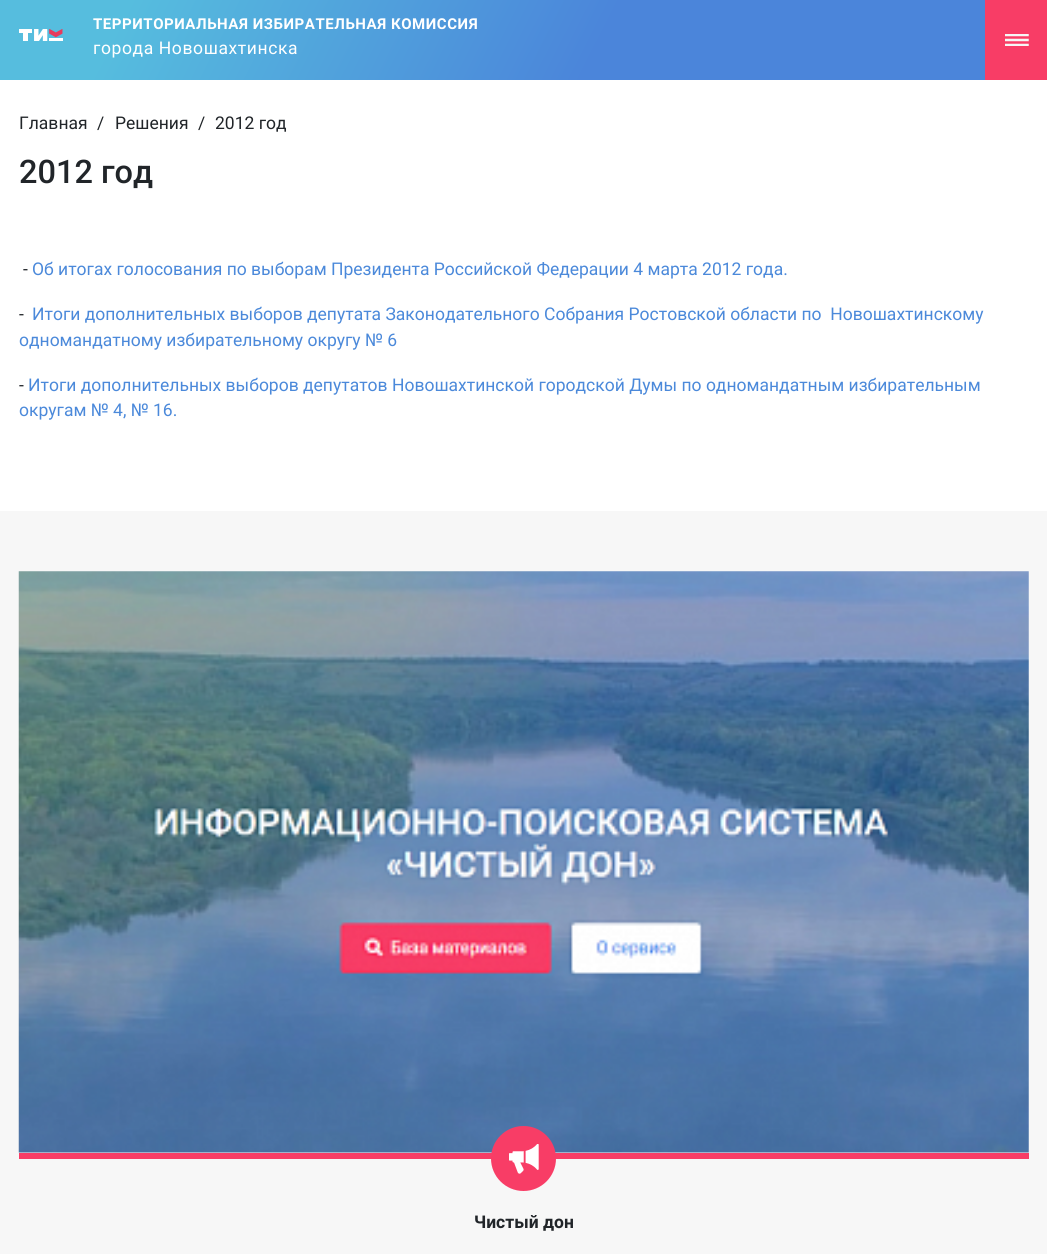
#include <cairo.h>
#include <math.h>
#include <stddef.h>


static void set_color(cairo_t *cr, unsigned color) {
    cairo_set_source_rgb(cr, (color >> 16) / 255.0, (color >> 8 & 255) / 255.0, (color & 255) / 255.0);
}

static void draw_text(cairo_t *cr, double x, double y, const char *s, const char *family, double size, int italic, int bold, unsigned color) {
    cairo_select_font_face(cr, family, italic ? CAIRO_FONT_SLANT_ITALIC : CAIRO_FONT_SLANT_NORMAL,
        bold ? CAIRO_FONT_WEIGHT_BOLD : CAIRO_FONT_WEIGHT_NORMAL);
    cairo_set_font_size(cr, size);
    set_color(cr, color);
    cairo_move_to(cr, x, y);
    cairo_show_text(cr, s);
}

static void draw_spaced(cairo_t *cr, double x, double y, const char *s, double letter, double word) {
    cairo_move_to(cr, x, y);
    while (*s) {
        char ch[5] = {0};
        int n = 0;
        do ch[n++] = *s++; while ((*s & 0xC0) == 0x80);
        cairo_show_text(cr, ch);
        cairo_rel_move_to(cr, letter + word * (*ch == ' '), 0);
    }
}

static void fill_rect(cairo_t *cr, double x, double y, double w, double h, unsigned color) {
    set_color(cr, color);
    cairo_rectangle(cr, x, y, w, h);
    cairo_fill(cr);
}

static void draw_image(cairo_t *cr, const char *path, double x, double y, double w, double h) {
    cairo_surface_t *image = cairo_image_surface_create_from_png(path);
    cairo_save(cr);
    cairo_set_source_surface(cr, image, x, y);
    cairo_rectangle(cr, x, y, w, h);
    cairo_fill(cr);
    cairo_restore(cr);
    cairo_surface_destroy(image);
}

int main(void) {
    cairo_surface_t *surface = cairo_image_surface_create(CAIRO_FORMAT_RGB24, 1047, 1254);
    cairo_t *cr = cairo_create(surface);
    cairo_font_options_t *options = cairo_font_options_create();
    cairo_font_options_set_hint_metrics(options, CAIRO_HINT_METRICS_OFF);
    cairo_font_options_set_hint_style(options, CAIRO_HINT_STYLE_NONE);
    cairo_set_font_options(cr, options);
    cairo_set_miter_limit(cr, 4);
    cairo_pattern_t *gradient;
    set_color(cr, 0xFFFFFF);
    cairo_paint(cr);
    gradient = cairo_pattern_create_linear(92, -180, 956, 260);
    cairo_pattern_add_color_stop_rgba(gradient, 0.12, 0.337, 0.741, 0.871, 1);
    cairo_pattern_add_color_stop_rgba(gradient, 0.57, 0.294, 0.522, 0.855, 1);
    cairo_set_source(cr, gradient);
    cairo_pattern_destroy(gradient);
    cairo_rectangle(cr, 0, 0, 985, 80);
    cairo_fill(cr);
    draw_image(cr, "assets/img1.png", 19, 29, 44, 12);
    cairo_select_font_face(cr, "Roboto", CAIRO_FONT_SLANT_NORMAL, CAIRO_FONT_WEIGHT_BOLD);
    cairo_set_font_size(cr, 15);
    set_color(cr, 0xFFFFFF);
    draw_spaced(cr, 93, 29, "ТЕРРИТОРИАЛЬНАЯ ИЗБИРАТЕЛЬНАЯ КОМИССИЯ", 0.55, 0);
    cairo_select_font_face(cr, "Roboto", CAIRO_FONT_SLANT_NORMAL, CAIRO_FONT_WEIGHT_NORMAL);
    cairo_set_font_size(cr, 17.5);
    draw_spaced(cr, 93, 54, "города Новошахтинска", 0.6, 0);
    fill_rect(cr, 985, 0, 62, 80, 0xF83D66);
    draw_image(cr, "assets/img2.png", 1005, 34, 24, 12);
    draw_text(cr, 19, 129, "Главная", "Roboto", 17.5, 0, 0, 0x212529);
    draw_text(cr, 97, 129, "/", "Roboto", 17.5, 0, 0, 0x212529);
    draw_text(cr, 115, 129, "Решения", "Roboto", 17.5, 0, 0, 0x212529);
    draw_text(cr, 198, 129, "/", "Roboto", 17.5, 0, 0, 0x212529);
    draw_text(cr, 215, 129, "2012 год", "Roboto", 17.5, 0, 0, 0x212529);
    draw_text(cr, 19, 183, "2012 год", "Roboto Medium", 32.5, 0, 0, 0x212529);
    draw_text(cr, 23, 275, "-", "Roboto", 17.5, 0, 0, 0x212529);
    draw_text(cr, 32, 275, "Об итогах голосования по выборам Президента Российской Федерации 4 марта 2012 года.", "Roboto", 17.5, 0, 0, 0x4B89DA);
    draw_text(cr, 19, 320, "-", "Roboto", 17.5, 0, 0, 0x212529);
    draw_text(cr, 32, 320, "Итоги дополнительных выборов депутата Законодательного Собрания Ростовской области по  Новошахтинскому", "Roboto", 17.5, 0, 0, 0x4B89DA);
    draw_text(cr, 19, 346, "одномандатному избирательному округу № 6", "Roboto", 17.5, 0, 0, 0x4B89DA);
    draw_text(cr, 19, 391, "-", "Roboto", 17.5, 0, 0, 0x212529);
    draw_text(cr, 28, 391, "Итоги дополнительных выборов депутатов Новошахтинской городской Думы по одномандатным избирательным", "Roboto", 17.5, 0, 0, 0x4B89DA);
    draw_text(cr, 19, 416, "округам № 4, № 16.", "Roboto", 17.5, 0, 0, 0x4B89DA);
    fill_rect(cr, 0, 511, 1047, 743, 0xF7F7F7);
    fill_rect(cr, 19, 1153, 1010, 6, 0xF83D66);
    draw_image(cr, "assets/img3.png", 18, 571, 1011, 582);
    cairo_arc(cr, 523.5, 1158.5, 32.5, 0, 2 * M_PI);
    cairo_fill(cr);
    draw_image(cr, "assets/img4.png", 509, 1144, 30, 30);
    draw_text(cr, 474, 1228, "Чистый дон", "Roboto", 17.5, 0, 1, 0x212529);
    cairo_surface_write_to_png(surface, "output.png");
    cairo_font_options_destroy(options);
    cairo_destroy(cr);
    cairo_surface_destroy(surface);
    return 0;
}
